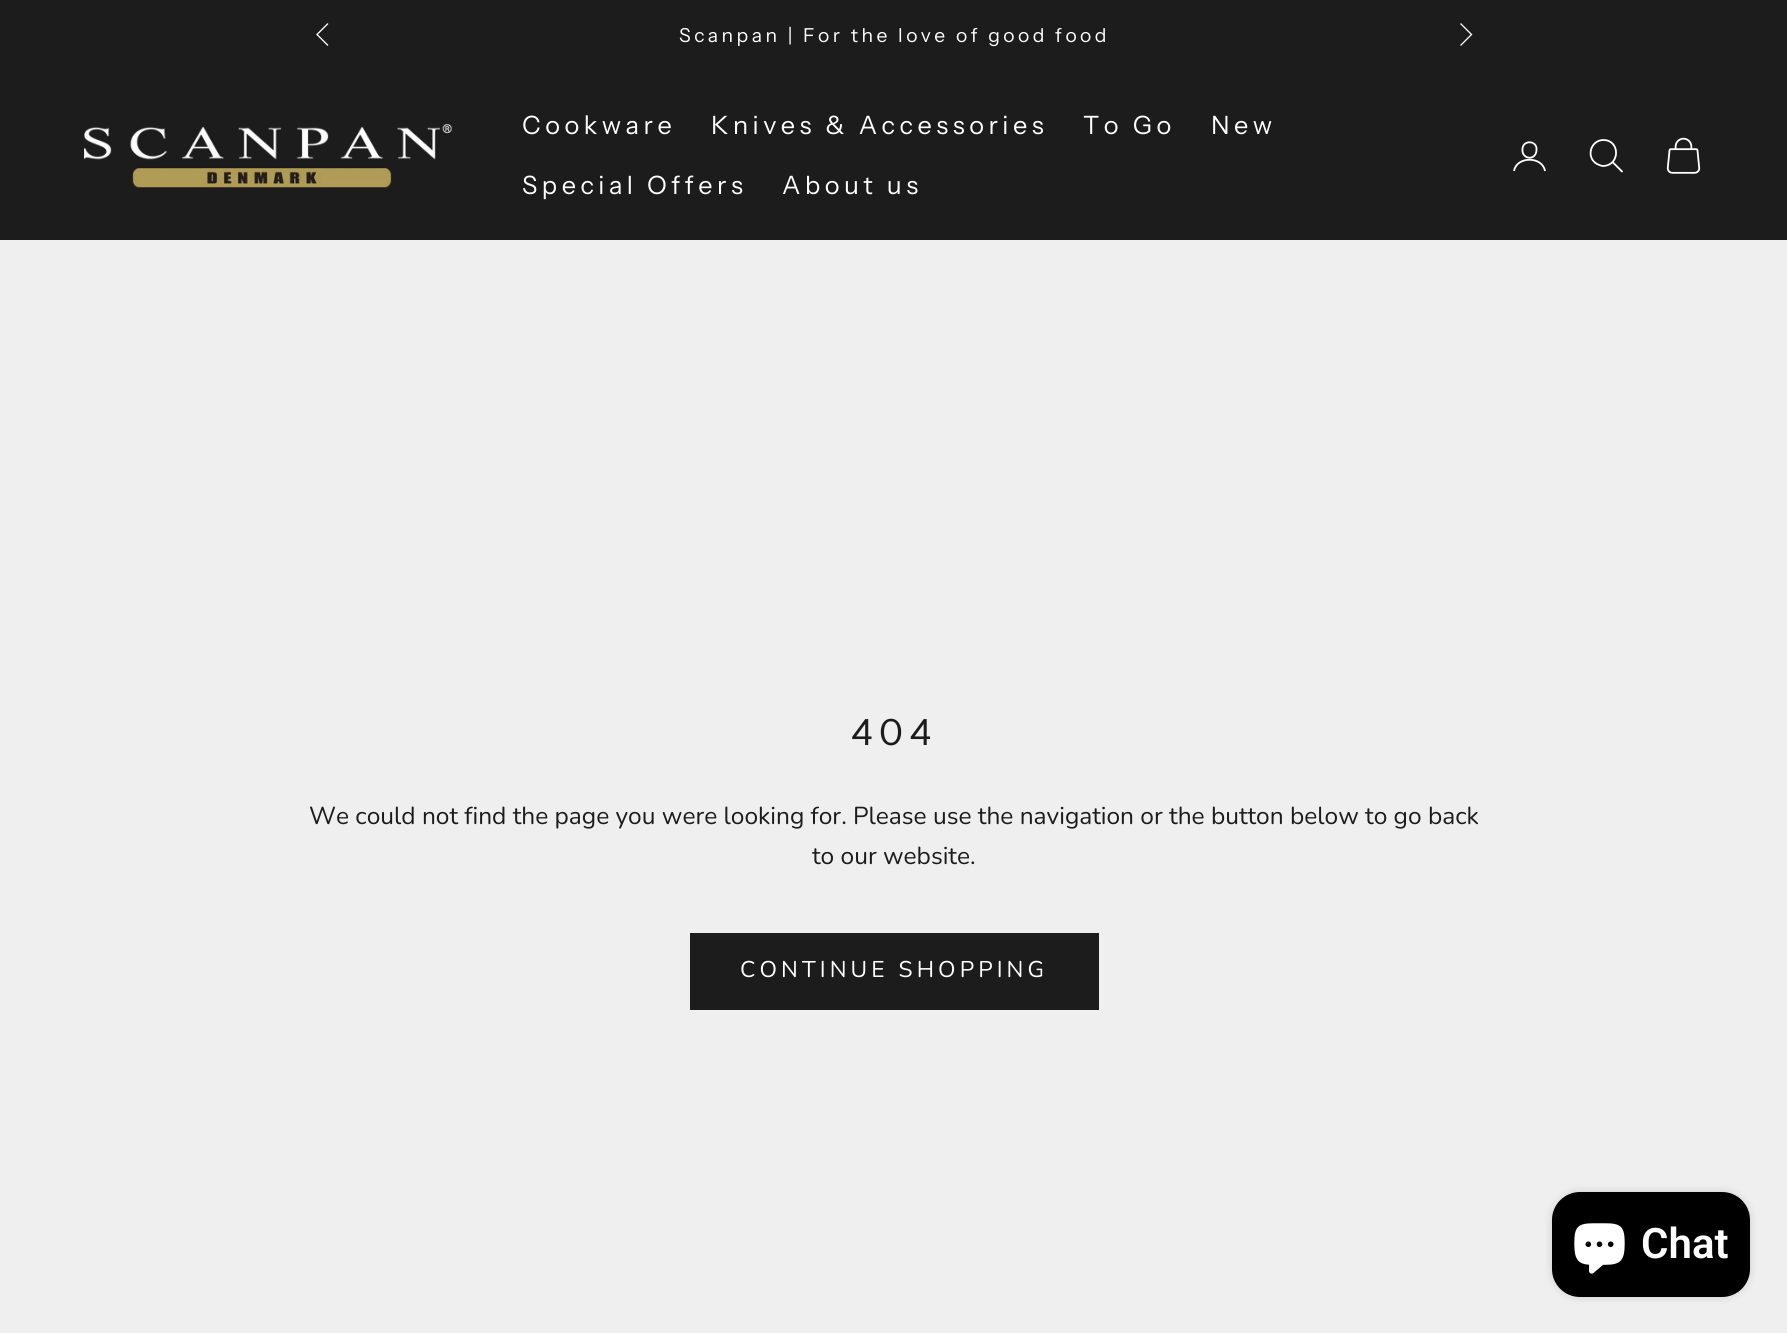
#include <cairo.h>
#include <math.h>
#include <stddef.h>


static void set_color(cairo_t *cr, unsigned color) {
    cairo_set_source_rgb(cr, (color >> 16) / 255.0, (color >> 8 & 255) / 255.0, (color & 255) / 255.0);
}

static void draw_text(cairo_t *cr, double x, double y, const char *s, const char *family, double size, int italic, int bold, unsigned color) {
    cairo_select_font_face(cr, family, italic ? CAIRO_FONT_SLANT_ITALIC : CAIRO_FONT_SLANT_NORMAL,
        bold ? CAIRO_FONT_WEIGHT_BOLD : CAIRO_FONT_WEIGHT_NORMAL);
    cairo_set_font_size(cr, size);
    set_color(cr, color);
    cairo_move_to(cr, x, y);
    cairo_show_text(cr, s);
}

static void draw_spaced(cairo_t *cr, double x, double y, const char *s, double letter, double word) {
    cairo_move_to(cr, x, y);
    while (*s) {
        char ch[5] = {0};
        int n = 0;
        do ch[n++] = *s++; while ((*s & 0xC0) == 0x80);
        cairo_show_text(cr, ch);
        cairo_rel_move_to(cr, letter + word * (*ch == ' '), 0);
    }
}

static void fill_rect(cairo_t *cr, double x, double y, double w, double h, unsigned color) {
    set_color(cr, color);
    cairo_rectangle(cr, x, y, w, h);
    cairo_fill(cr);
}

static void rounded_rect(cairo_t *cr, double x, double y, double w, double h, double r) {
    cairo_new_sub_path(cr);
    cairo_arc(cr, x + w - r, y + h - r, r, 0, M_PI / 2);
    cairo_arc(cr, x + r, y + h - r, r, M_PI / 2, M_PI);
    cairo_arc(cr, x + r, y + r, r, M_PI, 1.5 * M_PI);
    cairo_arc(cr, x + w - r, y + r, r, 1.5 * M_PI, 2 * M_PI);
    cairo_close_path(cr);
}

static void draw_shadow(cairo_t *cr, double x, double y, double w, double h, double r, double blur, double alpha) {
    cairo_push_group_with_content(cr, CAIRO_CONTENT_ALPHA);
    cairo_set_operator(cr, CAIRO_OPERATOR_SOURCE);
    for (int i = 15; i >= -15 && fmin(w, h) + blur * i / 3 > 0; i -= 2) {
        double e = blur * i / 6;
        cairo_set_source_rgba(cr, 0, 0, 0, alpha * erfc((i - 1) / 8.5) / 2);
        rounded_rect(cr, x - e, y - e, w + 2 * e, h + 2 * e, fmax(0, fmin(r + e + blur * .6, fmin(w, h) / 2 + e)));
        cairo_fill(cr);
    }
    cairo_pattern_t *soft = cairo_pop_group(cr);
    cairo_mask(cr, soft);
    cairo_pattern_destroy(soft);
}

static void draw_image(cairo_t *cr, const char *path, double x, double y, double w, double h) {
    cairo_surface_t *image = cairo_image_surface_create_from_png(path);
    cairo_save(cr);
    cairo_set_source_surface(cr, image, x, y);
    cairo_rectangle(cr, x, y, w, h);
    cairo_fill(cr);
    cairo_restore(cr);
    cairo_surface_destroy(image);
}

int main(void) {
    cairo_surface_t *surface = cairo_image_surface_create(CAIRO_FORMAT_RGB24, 1787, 1333);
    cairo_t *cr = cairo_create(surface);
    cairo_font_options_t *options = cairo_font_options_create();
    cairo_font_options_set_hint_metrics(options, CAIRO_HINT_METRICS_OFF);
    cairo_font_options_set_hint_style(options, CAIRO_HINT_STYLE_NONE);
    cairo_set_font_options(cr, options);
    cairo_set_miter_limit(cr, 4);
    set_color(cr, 0xEFEFEF);
    cairo_paint(cr);
    fill_rect(cr, 0, 0, 1787, 240, 0x1C1C1C);
    cairo_new_path(cr);
    cairo_move_to(cr, 327.5, 24);
    cairo_line_to(cr, 317, 34.5);
    cairo_line_to(cr, 327.5, 45);
    set_color(cr, 0xFFFFFF);
    cairo_set_line_width(cr, 1.3);
    cairo_set_line_cap(cr, CAIRO_LINE_CAP_SQUARE);
    cairo_stroke(cr);
    cairo_select_font_face(cr, "Instrument Sans", CAIRO_FONT_SLANT_NORMAL, CAIRO_FONT_WEIGHT_NORMAL);
    cairo_set_font_size(cr, 19.25);
    draw_spaced(cr, 679, 42, "Scanpan | For the love of good food", 3.45, 0);
    cairo_new_path(cr);
    cairo_move_to(cr, 1461, 45);
    cairo_line_to(cr, 1471.5, 34.5);
    cairo_line_to(cr, 1461, 24);
    cairo_stroke(cr);
    draw_image(cr, "assets/img1.png", 84, 124, 368, 64);
    cairo_set_font_size(cr, 25.25);
    draw_spaced(cr, 522, 134, "Cookware", 4.5, 0);
    draw_spaced(cr, 711, 134, "Knives & Accessories", 4.5, 0);
    draw_spaced(cr, 1083, 134, "To Go", 4.5, 0);
    draw_spaced(cr, 1211, 134, "New", 4.5, 0);
    draw_spaced(cr, 522, 194, "Special Offers", 4.5, 0);
    draw_spaced(cr, 782, 194, "About us", 4.5, 0);
    cairo_new_path(cr);
    cairo_move_to(cr, 1536.5, 150);
    cairo_curve_to(cr, 1536, 161.5, 1521, 159.5, 1522.5, 148.5);
    cairo_curve_to(cr, 1523.5, 139.5, 1537.5, 140.5, 1536.5, 150);
    cairo_close_path(cr);
    cairo_set_line_width(cr, 1.8);
    cairo_set_line_cap(cr, CAIRO_LINE_CAP_ROUND);
    cairo_set_line_join(cr, CAIRO_LINE_JOIN_ROUND);
    cairo_stroke(cr);
    cairo_new_path(cr);
    cairo_move_to(cr, 1514, 171);
    cairo_curve_to(cr, 1516.5, 156, 1542.5, 156, 1545, 171);
    cairo_set_line_cap(cr, CAIRO_LINE_CAP_BUTT);
    cairo_set_line_join(cr, CAIRO_LINE_JOIN_MITER);
    cairo_stroke(cr);
    cairo_new_path(cr);
    cairo_move_to(cr, 1603.5, 140);
    cairo_curve_to(cr, 1590.5, 140, 1585.5, 157.5, 1597, 164);
    cairo_curve_to(cr, 1599, 165, 1601.5, 166, 1603.5, 166);
    cairo_curve_to(cr, 1620.5, 165, 1620, 140, 1603.5, 140);
    cairo_close_path(cr);
    cairo_stroke(cr);
    cairo_new_path(cr);
    cairo_move_to(cr, 1613, 162.5);
    cairo_line_to(cr, 1622, 171.5);
    cairo_set_line_cap(cr, CAIRO_LINE_CAP_ROUND);
    cairo_stroke(cr);
    draw_image(cr, "assets/img2.png", 1666, 137, 35, 37);
    cairo_set_font_size(cr, 36);
    set_color(cr, 0x1C1C1C);
    draw_spaced(cr, 851, 745, "404", 6.5, 0);
    draw_text(cr, 309, 824, "We could not find the page you were looking for. Please use the navigation or the button below to go back", "Nunito", 24.5, 0, 0, 0x1C1C1C);
    draw_text(cr, 812, 864, "to our website.", "Nunito", 24.5, 0, 0, 0x1C1C1C);
    cairo_rectangle(cr, 691, 934, 407, 75);
    cairo_fill_preserve(cr);
    cairo_set_line_width(cr, 2);
    cairo_set_line_cap(cr, CAIRO_LINE_CAP_BUTT);
    cairo_stroke(cr);
    cairo_set_font_size(cr, 22.75);
    set_color(cr, 0xFFFFFF);
    draw_spaced(cr, 740, 977, "CONTINUE SHOPPING", 4.1, 0);
    set_color(cr, 0x000000);
    draw_shadow(cr, 1552, 1192, 198, 105, 28, 4.5, 0.15);
    set_color(cr, 0x000000);
    rounded_rect(cr, 1552, 1192, 198, 105, 28);
    cairo_fill(cr);
    draw_image(cr, "assets/img3.png", 1574, 1223, 51, 51);
    draw_text(cr, 1641, 1258, "Chat", "Roboto SemiBold", 42, 0, 0, 0xFFFFFF);
    cairo_surface_write_to_png(surface, "output.png");
    cairo_font_options_destroy(options);
    cairo_destroy(cr);
    cairo_surface_destroy(surface);
    return 0;
}
